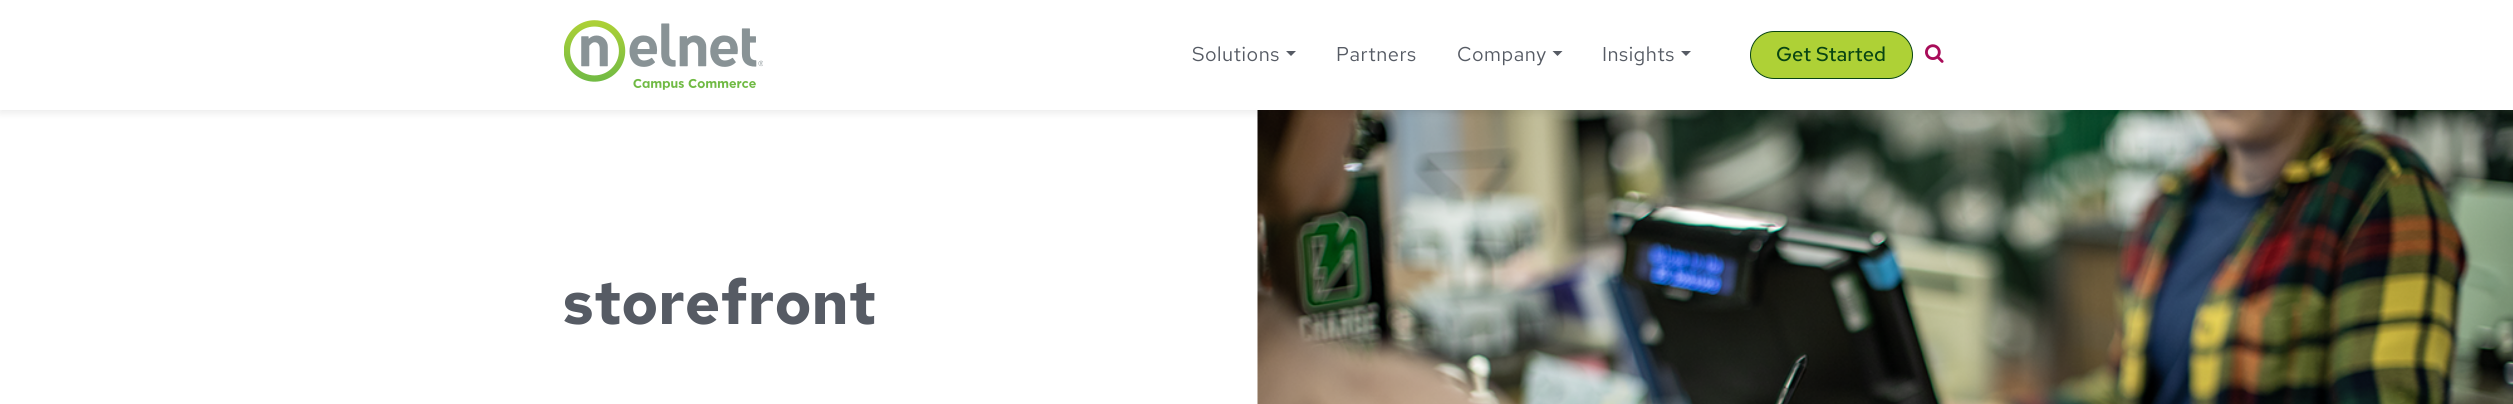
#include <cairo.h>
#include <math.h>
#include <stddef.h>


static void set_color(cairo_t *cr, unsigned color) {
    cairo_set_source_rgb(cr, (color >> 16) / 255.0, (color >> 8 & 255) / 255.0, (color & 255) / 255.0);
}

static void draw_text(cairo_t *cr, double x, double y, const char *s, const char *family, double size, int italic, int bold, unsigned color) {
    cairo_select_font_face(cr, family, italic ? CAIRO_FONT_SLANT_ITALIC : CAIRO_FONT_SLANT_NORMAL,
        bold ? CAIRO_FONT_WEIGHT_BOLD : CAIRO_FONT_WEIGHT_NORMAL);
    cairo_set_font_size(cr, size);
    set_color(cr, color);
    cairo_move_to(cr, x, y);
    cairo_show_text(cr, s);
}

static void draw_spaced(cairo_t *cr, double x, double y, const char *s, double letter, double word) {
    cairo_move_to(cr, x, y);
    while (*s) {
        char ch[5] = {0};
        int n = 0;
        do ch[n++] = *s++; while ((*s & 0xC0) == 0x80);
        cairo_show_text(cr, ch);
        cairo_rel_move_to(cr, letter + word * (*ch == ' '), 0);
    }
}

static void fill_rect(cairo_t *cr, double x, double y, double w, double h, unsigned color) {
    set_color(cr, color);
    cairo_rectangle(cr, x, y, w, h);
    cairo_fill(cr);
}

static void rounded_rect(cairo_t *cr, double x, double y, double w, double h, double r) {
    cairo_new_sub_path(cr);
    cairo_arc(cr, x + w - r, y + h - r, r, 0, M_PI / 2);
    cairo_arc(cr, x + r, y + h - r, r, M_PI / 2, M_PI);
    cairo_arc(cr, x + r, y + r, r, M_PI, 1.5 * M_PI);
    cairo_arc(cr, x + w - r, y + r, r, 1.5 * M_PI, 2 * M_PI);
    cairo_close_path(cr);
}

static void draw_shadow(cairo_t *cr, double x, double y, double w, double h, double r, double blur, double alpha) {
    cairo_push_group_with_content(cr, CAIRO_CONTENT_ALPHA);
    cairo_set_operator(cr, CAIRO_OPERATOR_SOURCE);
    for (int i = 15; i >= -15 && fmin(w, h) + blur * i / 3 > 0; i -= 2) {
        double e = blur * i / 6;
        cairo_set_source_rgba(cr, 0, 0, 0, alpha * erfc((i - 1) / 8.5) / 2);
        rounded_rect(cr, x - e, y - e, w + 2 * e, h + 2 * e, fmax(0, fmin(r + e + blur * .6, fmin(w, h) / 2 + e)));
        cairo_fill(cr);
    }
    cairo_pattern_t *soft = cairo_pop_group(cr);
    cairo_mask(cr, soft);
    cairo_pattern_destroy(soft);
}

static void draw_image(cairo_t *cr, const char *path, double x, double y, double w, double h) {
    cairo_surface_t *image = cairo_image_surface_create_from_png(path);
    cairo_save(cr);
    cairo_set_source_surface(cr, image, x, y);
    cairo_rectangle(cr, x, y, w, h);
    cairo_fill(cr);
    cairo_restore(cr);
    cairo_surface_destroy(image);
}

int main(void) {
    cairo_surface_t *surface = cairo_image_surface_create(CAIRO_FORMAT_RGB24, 2513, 404);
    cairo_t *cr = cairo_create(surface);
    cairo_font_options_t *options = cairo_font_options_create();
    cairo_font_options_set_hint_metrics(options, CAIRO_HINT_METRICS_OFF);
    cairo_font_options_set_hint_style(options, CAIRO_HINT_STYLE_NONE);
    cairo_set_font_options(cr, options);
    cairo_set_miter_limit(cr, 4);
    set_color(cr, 0xFFFFFF);
    cairo_paint(cr);
    draw_image(cr, "assets/img3.png", 1257, 110, 1256, 294);
    set_color(cr, 0x000000);
    draw_shadow(cr, 0, 3, 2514, 110, 0, 4, 0.08);
    fill_rect(cr, 0, 0, 2513, 110, 0xFFFFFF);
    draw_image(cr, "assets/img1.png", 564, 20, 199, 70);
    cairo_select_font_face(cr, "Red Hat Text", CAIRO_FONT_SLANT_NORMAL, CAIRO_FONT_WEIGHT_NORMAL);
    cairo_set_font_size(cr, 20);
    set_color(cr, 0x565B64);
    draw_spaced(cr, 1192, 61, "Solutions", 0.5, 0);
    cairo_new_path(cr);
    cairo_move_to(cr, 1286, 51);
    cairo_line_to(cr, 1296, 51);
    cairo_line_to(cr, 1291, 56);
    cairo_close_path(cr);
    cairo_fill(cr);
    draw_spaced(cr, 1336, 61, "Partners", 0.5, 0);
    draw_spaced(cr, 1457, 61, "Company", 0.5, 0);
    cairo_new_path(cr);
    cairo_move_to(cr, 1552.5, 51);
    cairo_line_to(cr, 1562.5, 51);
    cairo_line_to(cr, 1557.5, 56);
    cairo_close_path(cr);
    cairo_fill(cr);
    draw_spaced(cr, 1602, 61, "Insights", 0.5, 0);
    cairo_new_path(cr);
    cairo_move_to(cr, 1681, 51);
    cairo_line_to(cr, 1691, 51);
    cairo_line_to(cr, 1686, 56);
    cairo_close_path(cr);
    cairo_fill(cr);
    set_color(cr, 0xAED136);
    rounded_rect(cr, 1750.5, 31.5, 162, 47, 23.5);
    cairo_fill_preserve(cr);
    set_color(cr, 0x084412);
    cairo_set_line_width(cr, 1);
    cairo_stroke(cr);
    draw_text(cr, 1776, 61, "Get Started", "Red Hat Text Medium", 20, 0, 0, 0x084412);
    draw_image(cr, "assets/img2.png", 1925, 44, 19, 19);
    draw_text(cr, 563, 324, "storefront", "Red Hat Text", 60, 0, 1, 0x565B64);
    cairo_surface_write_to_png(surface, "output.png");
    cairo_font_options_destroy(options);
    cairo_destroy(cr);
    cairo_surface_destroy(surface);
    return 0;
}
